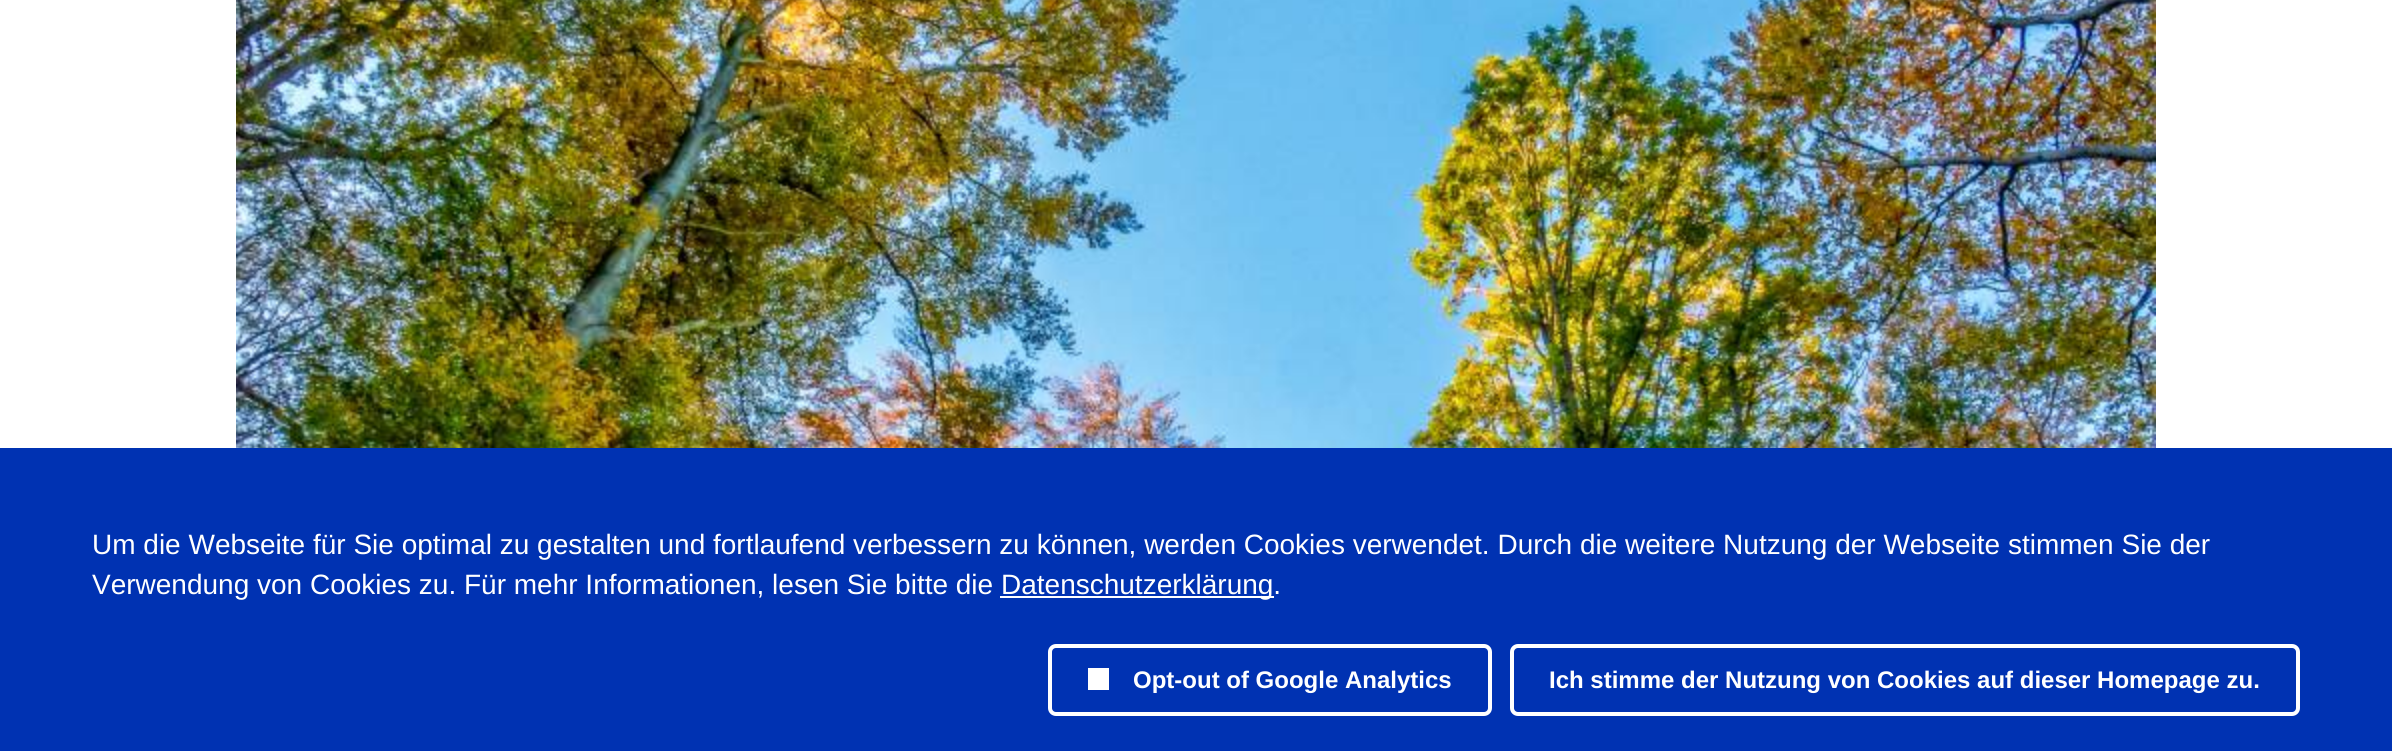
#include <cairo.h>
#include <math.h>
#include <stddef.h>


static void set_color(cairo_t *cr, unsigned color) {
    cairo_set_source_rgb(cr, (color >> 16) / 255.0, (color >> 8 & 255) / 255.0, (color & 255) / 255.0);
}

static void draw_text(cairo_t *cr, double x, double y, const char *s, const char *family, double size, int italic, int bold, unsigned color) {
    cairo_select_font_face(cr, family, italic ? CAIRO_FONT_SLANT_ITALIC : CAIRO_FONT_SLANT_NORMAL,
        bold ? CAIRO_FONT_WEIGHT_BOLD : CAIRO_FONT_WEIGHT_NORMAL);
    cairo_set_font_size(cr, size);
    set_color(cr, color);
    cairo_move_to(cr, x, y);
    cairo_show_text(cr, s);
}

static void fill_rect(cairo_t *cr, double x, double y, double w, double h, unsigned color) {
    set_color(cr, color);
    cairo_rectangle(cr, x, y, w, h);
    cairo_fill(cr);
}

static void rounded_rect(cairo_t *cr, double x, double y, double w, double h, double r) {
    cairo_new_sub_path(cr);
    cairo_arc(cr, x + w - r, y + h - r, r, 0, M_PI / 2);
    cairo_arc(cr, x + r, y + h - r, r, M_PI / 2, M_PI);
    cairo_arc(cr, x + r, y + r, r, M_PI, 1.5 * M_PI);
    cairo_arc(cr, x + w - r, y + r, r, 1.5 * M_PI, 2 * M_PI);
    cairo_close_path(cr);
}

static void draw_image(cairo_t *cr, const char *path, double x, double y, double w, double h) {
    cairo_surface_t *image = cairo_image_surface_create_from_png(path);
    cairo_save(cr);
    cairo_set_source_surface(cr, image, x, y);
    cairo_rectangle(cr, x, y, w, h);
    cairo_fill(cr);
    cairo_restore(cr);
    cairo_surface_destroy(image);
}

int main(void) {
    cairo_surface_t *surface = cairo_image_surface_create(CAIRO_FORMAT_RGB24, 2392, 751);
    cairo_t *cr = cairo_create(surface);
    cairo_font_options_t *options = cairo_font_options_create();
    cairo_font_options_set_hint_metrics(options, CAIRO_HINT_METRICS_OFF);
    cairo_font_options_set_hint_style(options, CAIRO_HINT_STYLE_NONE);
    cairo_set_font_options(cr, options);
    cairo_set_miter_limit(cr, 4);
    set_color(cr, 0xFFFFFF);
    cairo_paint(cr);
    draw_image(cr, "assets/img1.png", 236, 0, 1920, 448);
    fill_rect(cr, 0, 448, 2392, 303, 0x0032B2);
    draw_text(cr, 92, 554, "Um die Webseite für Sie optimal zu gestalten und fortlaufend verbessern zu können, werden Cookies verwendet. Durch die weitere Nutzung der Webseite stimmen Sie der", "Liberation Sans", 28, 0, 0, 0xFFFFFF);
    draw_text(cr, 92, 594, "Verwendung von Cookies zu. Für mehr Informationen, lesen Sie bitte die", "Liberation Sans", 28, 0, 0, 0xFFFFFF);
    fill_rect(cr, 1000, 596, 274, 2, 0xFFFFFF);
    draw_text(cr, 1001, 594, "Datenschutzerklärung.", "Liberation Sans", 28, 0, 0, 0xFFFFFF);
    rounded_rect(cr, 1050, 646, 440, 68, 6);
    cairo_set_line_width(cr, 4);
    cairo_stroke(cr);
    fill_rect(cr, 1088, 668, 21, 22, 0xFFFFFF);
    draw_text(cr, 1133, 688, "Opt-out of Google Analytics", "Liberation Sans", 24, 0, 1, 0xFFFFFF);
    rounded_rect(cr, 1512, 646, 786, 68, 6);
    cairo_stroke(cr);
    draw_text(cr, 1549, 688, "Ich stimme der Nutzung von Cookies auf dieser Homepage zu.", "Liberation Sans", 24, 0, 1, 0xFFFFFF);
    cairo_surface_write_to_png(surface, "output.png");
    cairo_font_options_destroy(options);
    cairo_destroy(cr);
    cairo_surface_destroy(surface);
    return 0;
}
